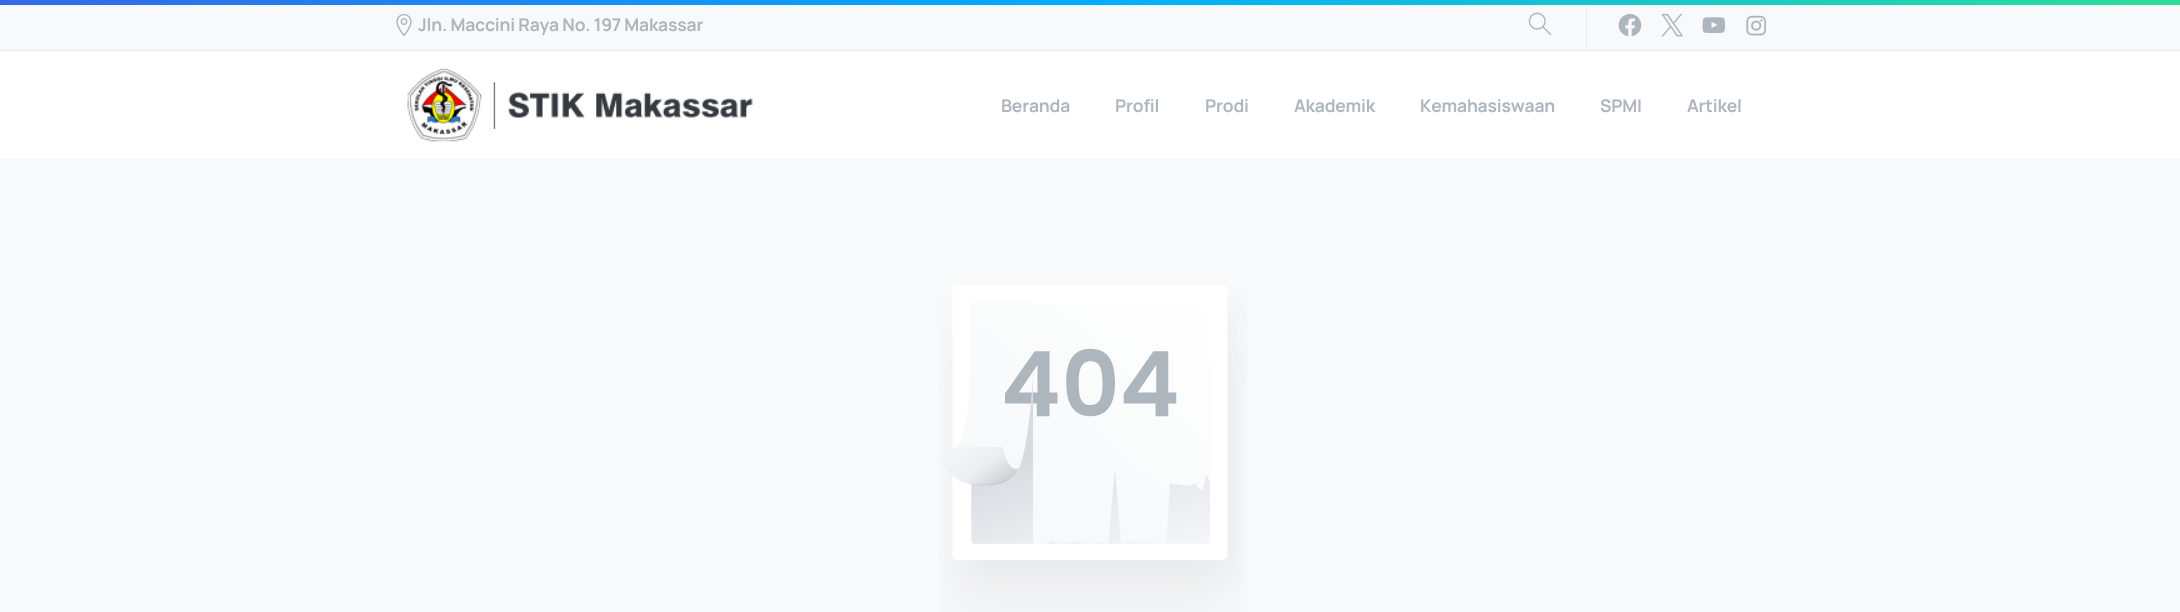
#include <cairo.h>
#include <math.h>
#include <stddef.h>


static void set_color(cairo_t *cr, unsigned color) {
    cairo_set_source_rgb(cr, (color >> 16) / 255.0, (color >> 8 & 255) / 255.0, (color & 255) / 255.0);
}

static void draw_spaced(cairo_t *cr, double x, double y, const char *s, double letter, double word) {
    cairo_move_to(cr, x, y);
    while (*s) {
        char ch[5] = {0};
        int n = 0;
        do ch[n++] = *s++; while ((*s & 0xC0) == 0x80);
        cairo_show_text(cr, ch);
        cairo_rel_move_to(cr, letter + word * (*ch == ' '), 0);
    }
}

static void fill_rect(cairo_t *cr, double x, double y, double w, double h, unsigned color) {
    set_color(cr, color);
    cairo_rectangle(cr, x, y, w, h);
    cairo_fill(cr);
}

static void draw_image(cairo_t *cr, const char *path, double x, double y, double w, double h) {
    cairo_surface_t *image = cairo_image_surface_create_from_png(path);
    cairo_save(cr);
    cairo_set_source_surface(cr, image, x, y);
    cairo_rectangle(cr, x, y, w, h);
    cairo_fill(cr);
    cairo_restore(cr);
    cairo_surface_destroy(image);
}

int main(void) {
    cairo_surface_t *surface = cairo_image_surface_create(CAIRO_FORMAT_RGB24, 2180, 612);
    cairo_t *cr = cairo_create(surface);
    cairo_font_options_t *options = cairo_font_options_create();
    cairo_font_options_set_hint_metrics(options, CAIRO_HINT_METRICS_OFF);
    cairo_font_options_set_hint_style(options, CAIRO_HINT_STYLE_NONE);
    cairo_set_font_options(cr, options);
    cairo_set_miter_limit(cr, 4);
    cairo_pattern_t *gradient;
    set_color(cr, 0xFFFFFF);
    cairo_paint(cr);
    fill_rect(cr, 0, 5, 2180, 45, 0xF8F9FA);
    fill_rect(cr, 1586, 0, 1, 50, 0xE9ECEF);
    gradient = cairo_pattern_create_linear(0, 2.5, 2180, 2.5);
    cairo_pattern_add_color_stop_rgba(gradient, 0, 0.2, 0.412, 0.906, 1);
    cairo_pattern_add_color_stop_rgba(gradient, 0.5, 0, 0.682, 1, 1);
    cairo_pattern_add_color_stop_rgba(gradient, 1, 0.176, 0.871, 0.596, 1);
    cairo_set_source(cr, gradient);
    cairo_pattern_destroy(gradient);
    cairo_rectangle(cr, 0, 0, 2180, 5);
    cairo_fill(cr);
    draw_image(cr, "assets/img1.png", 396, 14, 16, 23);
    cairo_select_font_face(cr, "Manrope", CAIRO_FONT_SLANT_NORMAL, CAIRO_FONT_WEIGHT_BOLD);
    cairo_set_font_size(cr, 17.5);
    set_color(cr, 0xADB5BD);
    draw_spaced(cr, 418, 31, "Jln. Maccini Raya No. 197 Makassar", -0.2, 0);
    draw_image(cr, "assets/img2.png", 1528, 12, 24, 24);
    draw_image(cr, "assets/img3.png", 1618, 14, 24, 23);
    draw_image(cr, "assets/img4.png", 1661, 13, 22, 24);
    draw_image(cr, "assets/img5.png", 1702, 17, 23, 17);
    draw_image(cr, "assets/img6.png", 1746, 15, 20, 21);
    fill_rect(cr, 0, 50, 2180, 1, 0xE9ECEF);
    draw_image(cr, "assets/img7.png", 407, 68, 346, 74);
    set_color(cr, 0xADB5BD);
    draw_spaced(cr, 1001, 112, "Beranda", -0.2, 0);
    draw_spaced(cr, 1115, 112, "Profil", -0.2, 0);
    draw_spaced(cr, 1205, 112, "Prodi", -0.2, 0);
    draw_spaced(cr, 1294, 112, "Akademik", -0.2, 0);
    draw_spaced(cr, 1420, 112, "Kemahasiswaan", -0.2, 0);
    draw_spaced(cr, 1600, 112, "SPMI", -0.2, 0);
    draw_spaced(cr, 1687, 112, "Artikel", -0.2, 0);
    fill_rect(cr, 0, 159, 2180, 453, 0xF8F9FA);
    draw_image(cr, "assets/img8.png", 939, 285, 308, 327);
    cairo_surface_write_to_png(surface, "output.png");
    cairo_font_options_destroy(options);
    cairo_destroy(cr);
    cairo_surface_destroy(surface);
    return 0;
}
